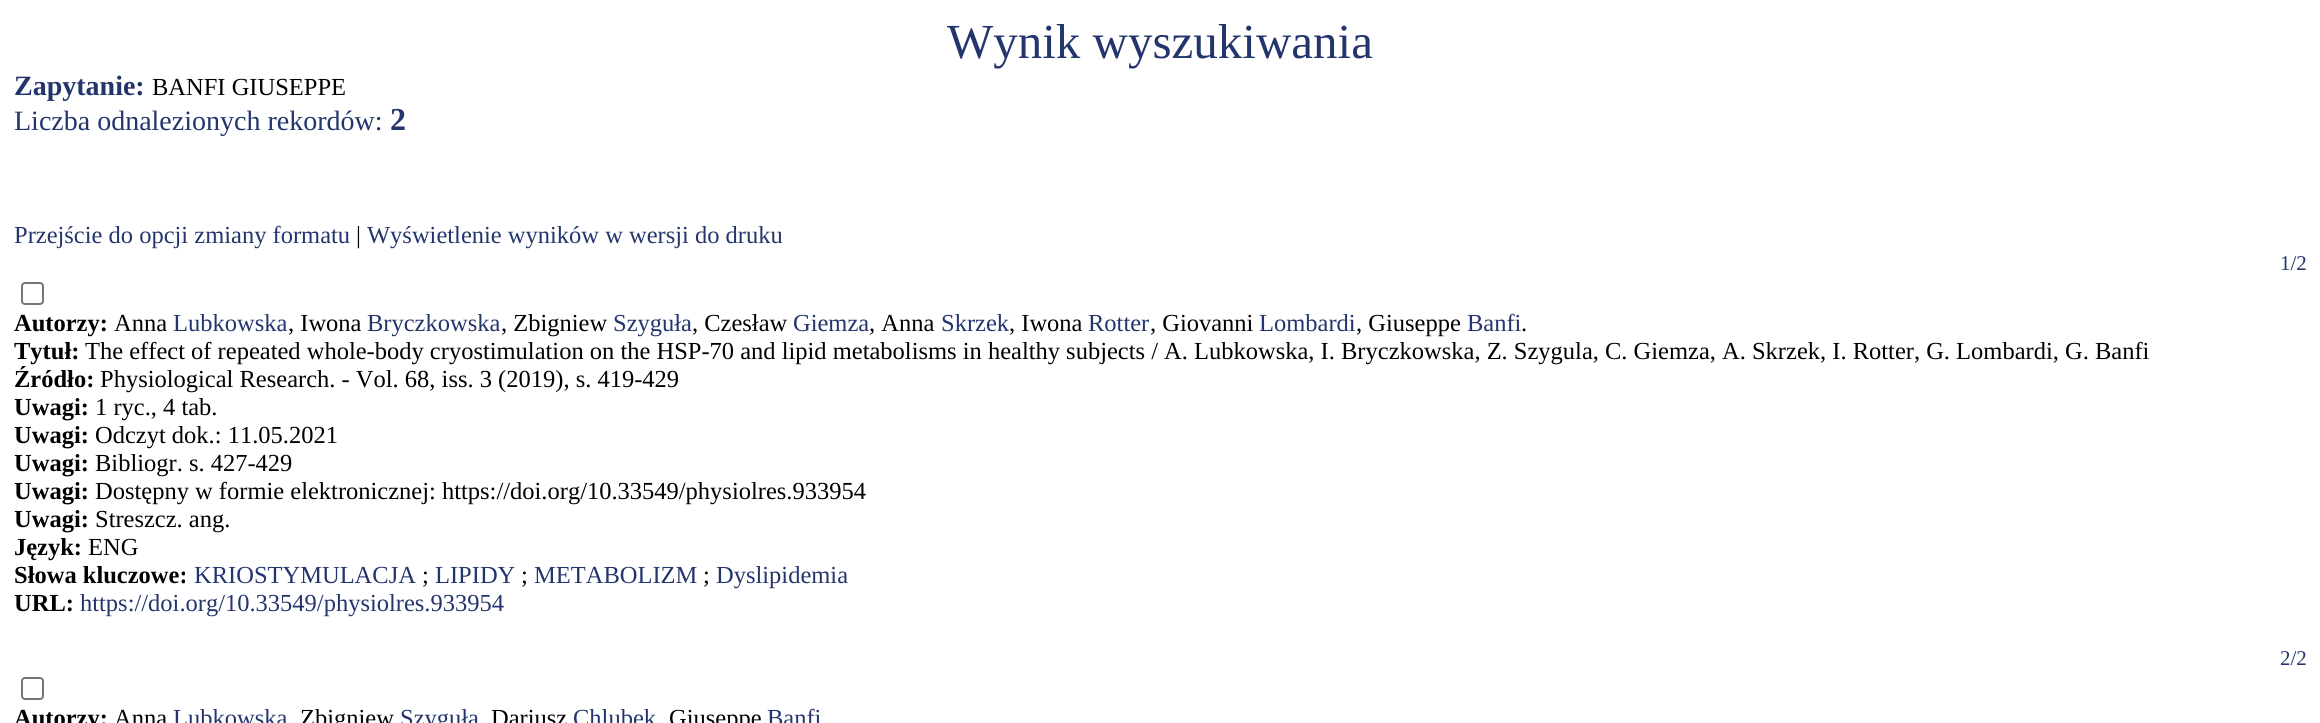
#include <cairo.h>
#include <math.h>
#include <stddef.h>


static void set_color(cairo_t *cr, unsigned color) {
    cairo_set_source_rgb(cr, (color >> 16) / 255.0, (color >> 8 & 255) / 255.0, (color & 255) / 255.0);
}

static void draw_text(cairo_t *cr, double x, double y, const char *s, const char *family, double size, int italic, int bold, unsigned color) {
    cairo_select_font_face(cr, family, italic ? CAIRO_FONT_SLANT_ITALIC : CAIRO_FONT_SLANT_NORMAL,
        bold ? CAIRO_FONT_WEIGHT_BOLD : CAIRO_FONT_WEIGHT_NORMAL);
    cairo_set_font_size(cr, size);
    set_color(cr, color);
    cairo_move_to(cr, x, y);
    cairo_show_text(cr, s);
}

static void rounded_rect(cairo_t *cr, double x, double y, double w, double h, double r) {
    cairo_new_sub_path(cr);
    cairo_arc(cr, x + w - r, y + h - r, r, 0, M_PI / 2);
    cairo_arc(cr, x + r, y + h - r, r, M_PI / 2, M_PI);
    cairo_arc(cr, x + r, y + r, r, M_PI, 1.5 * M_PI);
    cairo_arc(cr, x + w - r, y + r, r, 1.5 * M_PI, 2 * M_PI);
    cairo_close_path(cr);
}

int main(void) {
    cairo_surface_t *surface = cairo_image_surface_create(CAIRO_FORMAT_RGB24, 2320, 723);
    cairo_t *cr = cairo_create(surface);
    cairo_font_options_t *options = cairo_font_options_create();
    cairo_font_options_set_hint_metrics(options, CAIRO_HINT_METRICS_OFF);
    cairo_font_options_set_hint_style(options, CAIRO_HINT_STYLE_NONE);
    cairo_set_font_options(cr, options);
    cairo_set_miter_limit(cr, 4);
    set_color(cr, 0xFFFFFF);
    cairo_paint(cr);
    draw_text(cr, 947, 58, "Wynik wyszukiwania", "Liberation Serif", 49, 0, 0, 0x24356D);
    draw_text(cr, 14, 95, "Zapytanie:", "Liberation Serif", 28, 0, 1, 0x24356D);
    draw_text(cr, 152, 95, "BANFI GIUSEPPE", "Liberation Serif", 24.5, 0, 0, 0x000000);
    draw_text(cr, 14, 130, "Liczba odnalezionych rekordów:", "Liberation Serif", 28, 0, 0, 0x24356D);
    draw_text(cr, 390, 130, "2", "Liberation Serif", 32, 0, 1, 0x24356D);
    draw_text(cr, 14, 243, "Przejście do opcji zmiany formatu", "Liberation Serif", 24.5, 0, 0, 0x24356D);
    draw_text(cr, 356, 243, "|", "Liberation Serif", 24.5, 0, 0, 0x000000);
    draw_text(cr, 367, 243, "Wyświetlenie wyników w wersji do druku", "Liberation Serif", 24.5, 0, 0, 0x24356D);
    draw_text(cr, 2280, 270, "1/2", "Liberation Serif", 21, 0, 0, 0x24356D);
    rounded_rect(cr, 22, 283, 21, 21, 3);
    set_color(cr, 0x767676);
    cairo_stroke(cr);
    draw_text(cr, 14, 331, "Autorzy:", "Liberation Serif", 24.5, 0, 1, 0x000000);
    draw_text(cr, 114, 331, "Anna", "Liberation Serif", 24.5, 0, 0, 0x000000);
    draw_text(cr, 173, 331, "Lubkowska", "Liberation Serif", 24.5, 0, 0, 0x24356D);
    draw_text(cr, 288, 331, ", Iwona", "Liberation Serif", 24.5, 0, 0, 0x000000);
    draw_text(cr, 367, 331, "Bryczkowska", "Liberation Serif", 24.5, 0, 0, 0x24356D);
    draw_text(cr, 501, 331, ", Zbigniew", "Liberation Serif", 24.5, 0, 0, 0x000000);
    draw_text(cr, 613, 331, "Szyguła", "Liberation Serif", 24.5, 0, 0, 0x24356D);
    draw_text(cr, 692, 331, ", Czesław", "Liberation Serif", 24.5, 0, 0, 0x000000);
    draw_text(cr, 793, 331, "Giemza", "Liberation Serif", 24.5, 0, 0, 0x24356D);
    draw_text(cr, 869, 331, ", Anna", "Liberation Serif", 24.5, 0, 0, 0x000000);
    draw_text(cr, 941, 331, "Skrzek", "Liberation Serif", 24.5, 0, 0, 0x24356D);
    draw_text(cr, 1009, 331, ", Iwona", "Liberation Serif", 24.5, 0, 0, 0x000000);
    draw_text(cr, 1088, 331, "Rotter", "Liberation Serif", 24.5, 0, 0, 0x24356D);
    draw_text(cr, 1150, 331, ", Giovanni", "Liberation Serif", 24.5, 0, 0, 0x000000);
    draw_text(cr, 1259, 331, "Lombardi", "Liberation Serif", 24.5, 0, 0, 0x24356D);
    draw_text(cr, 1356, 331, ", Giuseppe", "Liberation Serif", 24.5, 0, 0, 0x000000);
    draw_text(cr, 1467, 331, "Banfi", "Liberation Serif", 24.5, 0, 0, 0x24356D);
    draw_text(cr, 1521, 331, ".", "Liberation Serif", 24.5, 0, 0, 0x000000);
    draw_text(cr, 14, 359, "Tytuł:", "Liberation Serif", 24.5, 0, 1, 0x000000);
    draw_text(cr, 85, 359, "The effect of repeated whole-body cryostimulation on the HSP-70 and lipid metabolisms in healthy subjects / A. Lubkowska, I. Bryczkowska, Z. Szygula, C. Giemza, A. Skrzek, I. Rotter, G. Lombardi, G. Banfi", "Liberation Serif", 24.5, 0, 0, 0x000000);
    draw_text(cr, 14, 387, "Źródło:", "Liberation Serif", 24.5, 0, 1, 0x000000);
    draw_text(cr, 100, 387, "Physiological Research. - Vol. 68, iss. 3 (2019), s. 419-429", "Liberation Serif", 24.5, 0, 0, 0x000000);
    draw_text(cr, 14, 415, "Uwagi:", "Liberation Serif", 24.5, 0, 1, 0x000000);
    draw_text(cr, 95, 415, "1 ryc., 4 tab.", "Liberation Serif", 24.5, 0, 0, 0x000000);
    draw_text(cr, 14, 443, "Uwagi:", "Liberation Serif", 24.5, 0, 1, 0x000000);
    draw_text(cr, 95, 443, "Odczyt dok.: 11.05.2021", "Liberation Serif", 24.5, 0, 0, 0x000000);
    draw_text(cr, 14, 471, "Uwagi:", "Liberation Serif", 24.5, 0, 1, 0x000000);
    draw_text(cr, 95, 471, "Bibliogr. s. 427-429", "Liberation Serif", 24.5, 0, 0, 0x000000);
    draw_text(cr, 14, 499, "Uwagi:", "Liberation Serif", 24.5, 0, 1, 0x000000);
    draw_text(cr, 95, 499, "Dostępny w formie elektronicznej: https://doi.org/10.33549/physiolres.933954", "Liberation Serif", 24.5, 0, 0, 0x000000);
    draw_text(cr, 14, 527, "Uwagi:", "Liberation Serif", 24.5, 0, 1, 0x000000);
    draw_text(cr, 95, 527, "Streszcz. ang.", "Liberation Serif", 24.5, 0, 0, 0x000000);
    draw_text(cr, 14, 555, "Język:", "Liberation Serif", 24.5, 0, 1, 0x000000);
    draw_text(cr, 88, 555, "ENG", "Liberation Serif", 24.5, 0, 0, 0x000000);
    draw_text(cr, 14, 583, "Słowa kluczowe:", "Liberation Serif", 24.5, 0, 1, 0x000000);
    draw_text(cr, 194, 583, "KRIOSTYMULACJA", "Liberation Serif", 24.5, 0, 0, 0x24356D);
    draw_text(cr, 422, 583, ";", "Liberation Serif", 24.5, 0, 0, 0x000000);
    draw_text(cr, 435, 583, "LIPIDY", "Liberation Serif", 24.5, 0, 0, 0x24356D);
    draw_text(cr, 521, 583, ";", "Liberation Serif", 24.5, 0, 0, 0x000000);
    draw_text(cr, 534, 583, "METABOLIZM", "Liberation Serif", 24.5, 0, 0, 0x24356D);
    draw_text(cr, 703, 583, ";", "Liberation Serif", 24.5, 0, 0, 0x000000);
    draw_text(cr, 716, 583, "Dyslipidemia", "Liberation Serif", 24.5, 0, 0, 0x24356D);
    draw_text(cr, 14, 611, "URL:", "Liberation Serif", 24.5, 0, 1, 0x000000);
    draw_text(cr, 80, 611, "https://doi.org/10.33549/physiolres.933954", "Liberation Serif", 24.5, 0, 0, 0x24356D);
    draw_text(cr, 2280, 665, "2/2", "Liberation Serif", 21, 0, 0, 0x24356D);
    rounded_rect(cr, 22, 678, 21, 21, 3);
    set_color(cr, 0x767676);
    cairo_stroke(cr);
    draw_text(cr, 14, 726, "Autorzy:", "Liberation Serif", 24.5, 0, 1, 0x000000);
    draw_text(cr, 114, 726, "Anna", "Liberation Serif", 24.5, 0, 0, 0x000000);
    draw_text(cr, 173, 726, "Lubkowska", "Liberation Serif", 24.5, 0, 0, 0x24356D);
    draw_text(cr, 300, 726, "Zbigniew", "Liberation Serif", 24.5, 0, 0, 0x000000);
    draw_text(cr, 400, 726, "Szyguła", "Liberation Serif", 24.5, 0, 0, 0x24356D);
    draw_text(cr, 491, 726, "Dariusz", "Liberation Serif", 24.5, 0, 0, 0x000000);
    draw_text(cr, 573, 726, "Chlubek", "Liberation Serif", 24.5, 0, 0, 0x24356D);
    draw_text(cr, 669, 726, "Giuseppe", "Liberation Serif", 24.5, 0, 0, 0x000000);
    draw_text(cr, 767, 726, "Banfi", "Liberation Serif", 24.5, 0, 0, 0x24356D);
    cairo_surface_write_to_png(surface, "output.png");
    cairo_font_options_destroy(options);
    cairo_destroy(cr);
    cairo_surface_destroy(surface);
    return 0;
}
